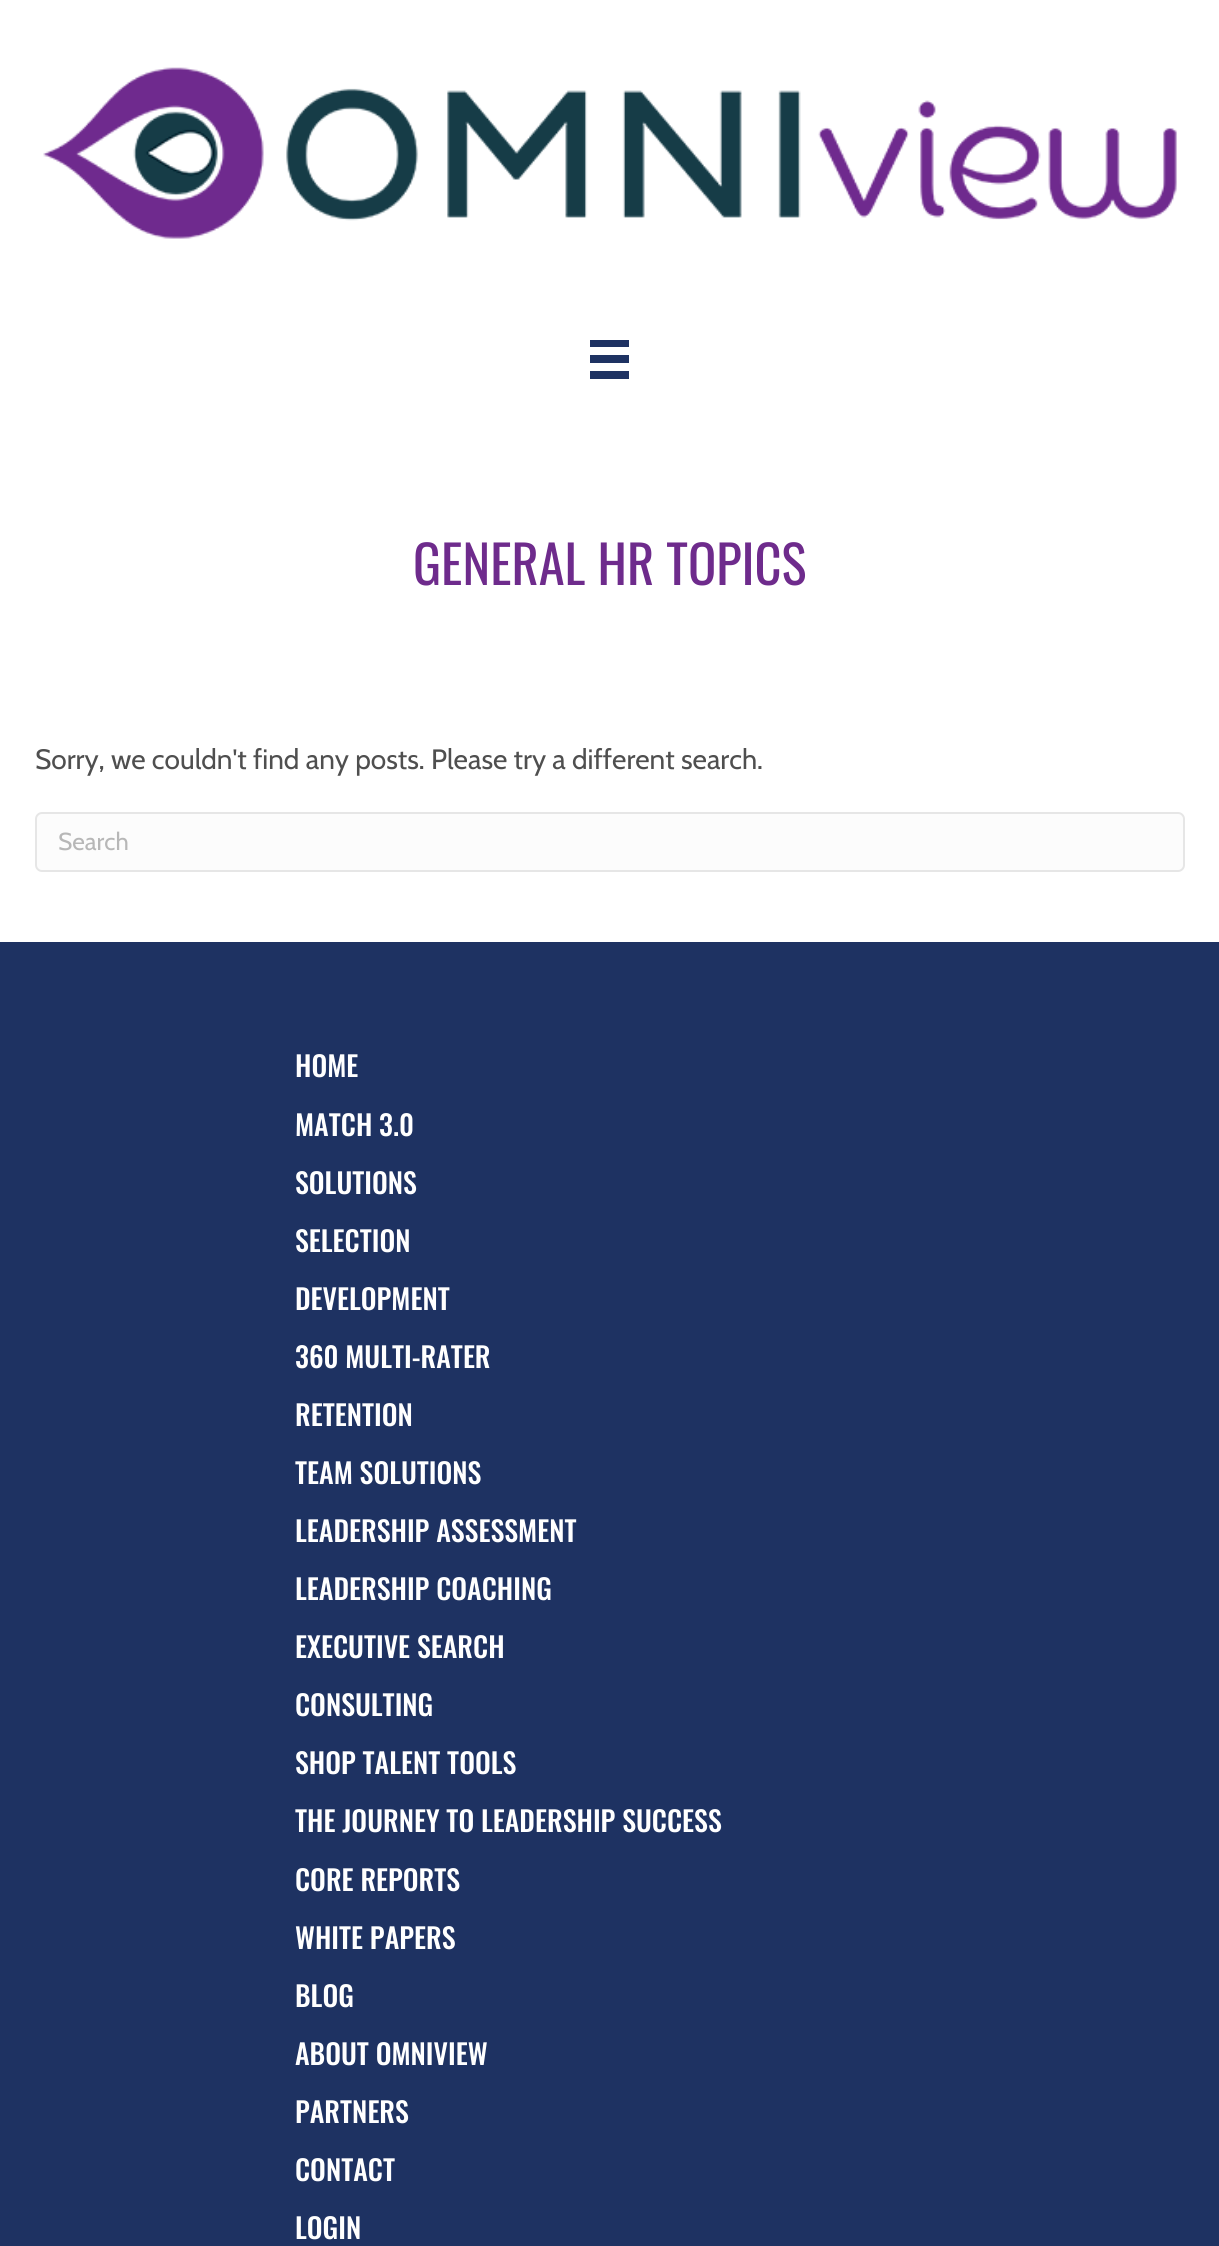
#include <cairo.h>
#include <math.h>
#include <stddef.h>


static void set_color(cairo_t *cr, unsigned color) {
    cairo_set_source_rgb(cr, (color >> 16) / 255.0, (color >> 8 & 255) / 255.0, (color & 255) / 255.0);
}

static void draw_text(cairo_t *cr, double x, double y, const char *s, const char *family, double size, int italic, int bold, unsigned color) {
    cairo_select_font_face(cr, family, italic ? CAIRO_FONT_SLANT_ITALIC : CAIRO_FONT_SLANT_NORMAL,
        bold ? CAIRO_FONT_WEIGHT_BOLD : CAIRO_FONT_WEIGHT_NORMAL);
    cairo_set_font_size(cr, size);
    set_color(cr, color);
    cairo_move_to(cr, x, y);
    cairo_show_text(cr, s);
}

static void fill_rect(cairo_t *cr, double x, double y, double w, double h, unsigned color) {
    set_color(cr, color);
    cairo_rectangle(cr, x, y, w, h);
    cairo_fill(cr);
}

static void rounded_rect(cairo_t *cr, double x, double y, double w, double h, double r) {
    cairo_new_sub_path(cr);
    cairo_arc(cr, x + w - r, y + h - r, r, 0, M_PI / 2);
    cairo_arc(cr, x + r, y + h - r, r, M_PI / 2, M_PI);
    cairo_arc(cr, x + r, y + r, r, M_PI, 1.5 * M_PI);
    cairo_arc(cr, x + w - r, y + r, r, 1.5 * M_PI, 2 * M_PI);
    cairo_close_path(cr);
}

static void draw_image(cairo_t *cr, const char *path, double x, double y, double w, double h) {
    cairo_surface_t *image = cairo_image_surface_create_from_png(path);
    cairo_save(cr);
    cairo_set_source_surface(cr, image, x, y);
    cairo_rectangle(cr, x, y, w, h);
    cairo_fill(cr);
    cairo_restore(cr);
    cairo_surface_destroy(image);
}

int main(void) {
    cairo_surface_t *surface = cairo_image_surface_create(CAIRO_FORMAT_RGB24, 1219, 2246);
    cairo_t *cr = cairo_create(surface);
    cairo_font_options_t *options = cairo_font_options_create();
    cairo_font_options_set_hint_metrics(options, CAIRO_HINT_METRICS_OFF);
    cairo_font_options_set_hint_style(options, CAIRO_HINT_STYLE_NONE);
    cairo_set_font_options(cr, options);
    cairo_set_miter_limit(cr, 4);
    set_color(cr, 0xFFFFFF);
    cairo_paint(cr);
    draw_image(cr, "assets/img1.png", 43, 67, 1134, 172);
    fill_rect(cr, 590, 340, 39, 7, 0x1E3262);
    fill_rect(cr, 590, 355, 39, 8, 0x1E3262);
    fill_rect(cr, 590, 371, 39, 8, 0x1E3262);
    draw_text(cr, 413, 585, "GENERAL HR TOPICS", "Oswald", 52.5, 0, 0, 0x6E2B8C);
    draw_text(cr, 35, 769, "Sorry, we couldn't find any posts. Please try a different search.", "Cabin", 28, 0, 0, 0x4F4F4F);
    set_color(cr, 0xFCFCFC);
    rounded_rect(cr, 36, 813, 1148, 58, 6);
    cairo_fill_preserve(cr);
    set_color(cr, 0xE6E6E6);
    cairo_stroke(cr);
    draw_text(cr, 58, 850, "Search", "Cabin", 24.5, 0, 0, 0xB7B7B7);
    fill_rect(cr, 0, 942, 1219, 1304, 0x1E3262);
    draw_text(cr, 295, 1077, "HOME", "Oswald Medium", 28, 0, 0, 0xFFFFFF);
    draw_text(cr, 295, 1136, "MATCH 3.0", "Oswald Medium", 28, 0, 0, 0xFFFFFF);
    draw_text(cr, 295, 1194, "SOLUTIONS", "Oswald Medium", 28, 0, 0, 0xFFFFFF);
    draw_text(cr, 295, 1252, "SELECTION", "Oswald Medium", 28, 0, 0, 0xFFFFFF);
    draw_text(cr, 295, 1310, "DEVELOPMENT", "Oswald Medium", 28, 0, 0, 0xFFFFFF);
    draw_text(cr, 295, 1368, "360 MULTI-RATER", "Oswald Medium", 28, 0, 0, 0xFFFFFF);
    draw_text(cr, 295, 1426, "RETENTION", "Oswald Medium", 28, 0, 0, 0xFFFFFF);
    draw_text(cr, 295, 1484, "TEAM SOLUTIONS", "Oswald Medium", 28, 0, 0, 0xFFFFFF);
    draw_text(cr, 295, 1542, "LEADERSHIP ASSESSMENT", "Oswald Medium", 28, 0, 0, 0xFFFFFF);
    draw_text(cr, 295, 1600, "LEADERSHIP COACHING", "Oswald Medium", 28, 0, 0, 0xFFFFFF);
    draw_text(cr, 295, 1658, "EXECUTIVE SEARCH", "Oswald Medium", 28, 0, 0, 0xFFFFFF);
    draw_text(cr, 295, 1716, "CONSULTING", "Oswald Medium", 28, 0, 0, 0xFFFFFF);
    draw_text(cr, 295, 1774, "SHOP TALENT TOOLS", "Oswald Medium", 28, 0, 0, 0xFFFFFF);
    draw_text(cr, 295, 1832, "THE JOURNEY TO LEADERSHIP SUCCESS", "Oswald Medium", 28, 0, 0, 0xFFFFFF);
    draw_text(cr, 295, 1891, "CORE REPORTS", "Oswald Medium", 28, 0, 0, 0xFFFFFF);
    draw_text(cr, 295, 1949, "WHITE PAPERS", "Oswald Medium", 28, 0, 0, 0xFFFFFF);
    draw_text(cr, 295, 2007, "BLOG", "Oswald Medium", 28, 0, 0, 0xFFFFFF);
    draw_text(cr, 295, 2065, "ABOUT OMNIVIEW", "Oswald Medium", 28, 0, 0, 0xFFFFFF);
    draw_text(cr, 295, 2123, "PARTNERS", "Oswald Medium", 28, 0, 0, 0xFFFFFF);
    draw_text(cr, 295, 2181, "CONTACT", "Oswald Medium", 28, 0, 0, 0xFFFFFF);
    draw_text(cr, 295, 2239, "LOGIN", "Oswald Medium", 28, 0, 0, 0xFFFFFF);
    cairo_surface_write_to_png(surface, "output.png");
    cairo_font_options_destroy(options);
    cairo_destroy(cr);
    cairo_surface_destroy(surface);
    return 0;
}
